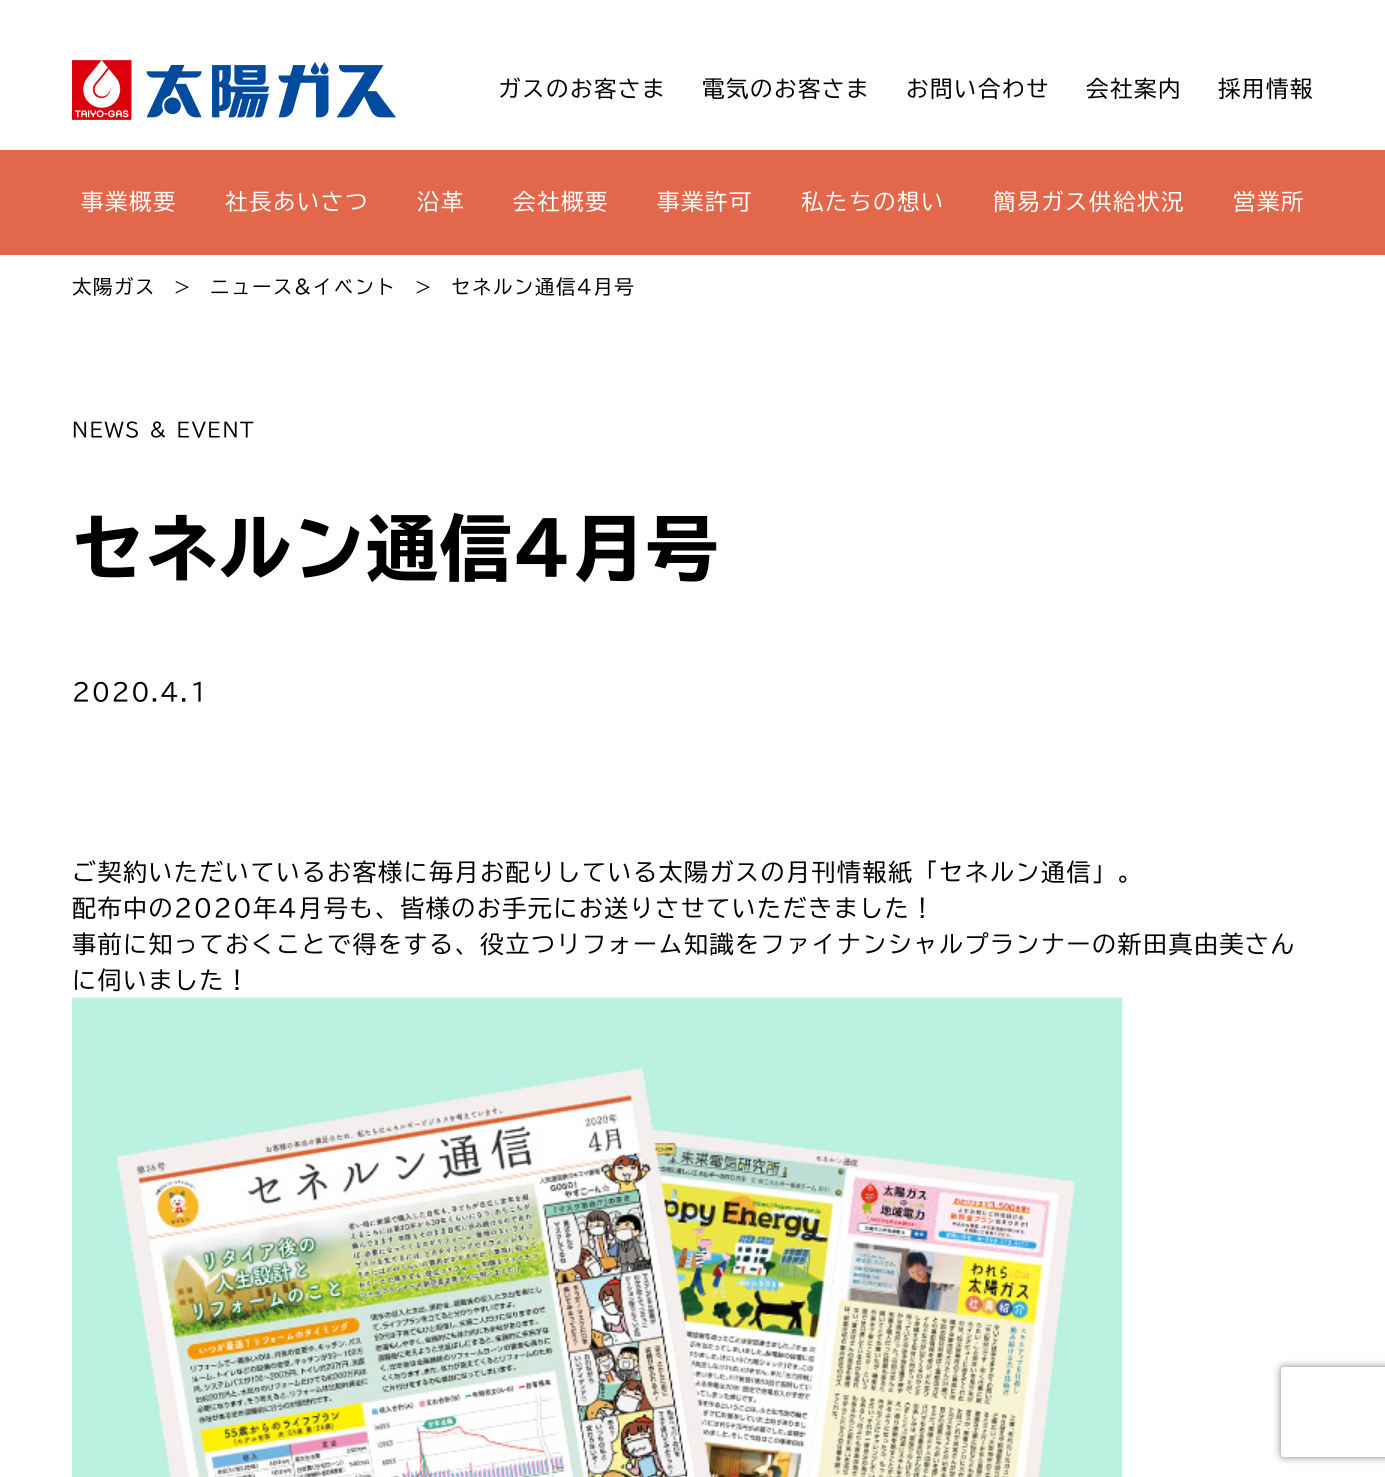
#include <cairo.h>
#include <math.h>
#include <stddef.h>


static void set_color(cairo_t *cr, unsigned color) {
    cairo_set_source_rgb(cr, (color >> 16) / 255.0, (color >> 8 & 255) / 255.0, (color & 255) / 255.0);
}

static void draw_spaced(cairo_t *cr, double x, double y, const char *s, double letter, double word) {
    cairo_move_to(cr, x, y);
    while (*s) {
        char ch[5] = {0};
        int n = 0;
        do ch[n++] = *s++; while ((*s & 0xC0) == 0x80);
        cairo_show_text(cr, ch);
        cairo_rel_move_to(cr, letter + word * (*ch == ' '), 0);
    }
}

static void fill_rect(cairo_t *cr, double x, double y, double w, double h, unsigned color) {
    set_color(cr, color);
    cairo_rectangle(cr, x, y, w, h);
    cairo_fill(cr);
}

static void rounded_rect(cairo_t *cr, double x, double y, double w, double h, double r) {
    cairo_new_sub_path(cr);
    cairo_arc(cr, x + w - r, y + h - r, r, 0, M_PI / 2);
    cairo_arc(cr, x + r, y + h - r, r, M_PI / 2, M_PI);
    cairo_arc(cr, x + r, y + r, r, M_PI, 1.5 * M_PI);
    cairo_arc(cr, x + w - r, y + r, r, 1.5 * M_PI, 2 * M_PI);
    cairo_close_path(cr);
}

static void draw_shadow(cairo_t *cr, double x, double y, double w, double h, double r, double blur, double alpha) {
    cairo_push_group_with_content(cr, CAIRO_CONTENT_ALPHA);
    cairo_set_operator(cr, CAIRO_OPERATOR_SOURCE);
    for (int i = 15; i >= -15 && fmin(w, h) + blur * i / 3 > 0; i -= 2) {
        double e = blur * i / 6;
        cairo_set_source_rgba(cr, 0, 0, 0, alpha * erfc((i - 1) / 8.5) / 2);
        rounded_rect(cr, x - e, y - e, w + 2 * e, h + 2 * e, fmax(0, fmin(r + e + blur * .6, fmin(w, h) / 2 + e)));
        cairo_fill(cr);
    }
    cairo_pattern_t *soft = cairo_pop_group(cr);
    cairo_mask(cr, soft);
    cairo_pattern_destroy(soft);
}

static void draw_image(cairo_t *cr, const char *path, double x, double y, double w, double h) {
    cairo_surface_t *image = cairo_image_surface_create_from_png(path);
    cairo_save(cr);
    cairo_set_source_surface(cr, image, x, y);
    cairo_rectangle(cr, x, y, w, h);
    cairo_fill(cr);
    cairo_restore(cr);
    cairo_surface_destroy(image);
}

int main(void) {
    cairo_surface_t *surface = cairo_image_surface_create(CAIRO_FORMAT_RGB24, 1385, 1477);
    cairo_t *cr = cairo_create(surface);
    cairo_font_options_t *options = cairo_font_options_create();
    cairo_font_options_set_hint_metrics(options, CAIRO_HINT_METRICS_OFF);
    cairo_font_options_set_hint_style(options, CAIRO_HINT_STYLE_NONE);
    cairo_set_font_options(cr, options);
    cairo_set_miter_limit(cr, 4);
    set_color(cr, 0xFFFFFF);
    cairo_paint(cr);
    draw_image(cr, "assets/img1.png", 72, 60, 324, 60);
    cairo_select_font_face(cr, "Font", CAIRO_FONT_SLANT_NORMAL, CAIRO_FONT_WEIGHT_NORMAL);
    cairo_set_font_size(cr, 22.5);
    set_color(cr, 0x000000);
    draw_spaced(cr, 498, 97, "ガスのお客さま", 1.5, 0);
    draw_spaced(cr, 702, 97, "電気のお客さま", 1.5, 0);
    draw_spaced(cr, 906, 97, "お問い合わせ", 1.5, 0);
    draw_spaced(cr, 1086, 97, "会社案内", 1.5, 0);
    draw_spaced(cr, 1218, 97, "採用情報", 1.5, 0);
    fill_rect(cr, 0, 150, 1385, 105, 0xE2674B);
    set_color(cr, 0xFFFFFF);
    draw_spaced(cr, 81, 210, "事業概要", 1.5, 0);
    draw_spaced(cr, 225, 210, "社長あいさつ", 1.5, 0);
    draw_spaced(cr, 417, 210, "沿革", 1.5, 0);
    draw_spaced(cr, 513, 210, "会社概要", 1.5, 0);
    draw_spaced(cr, 657, 210, "事業許可", 1.5, 0);
    draw_spaced(cr, 801, 210, "私たちの想い", 1.5, 0);
    draw_spaced(cr, 993, 210, "簡易ガス供給状況", 1.5, 0);
    draw_spaced(cr, 1233, 210, "営業所", 1.5, 0);
    cairo_set_font_size(cr, 19.5);
    set_color(cr, 0x000000);
    draw_spaced(cr, 72, 294, "太陽ガス", 1.5, 0);
    draw_spaced(cr, 174, 294, ">", 1.5, 0);
    draw_spaced(cr, 210, 294, "ニュース&イベント", 1.5, 0);
    draw_spaced(cr, 415, 294, ">", 1.5, 0);
    draw_spaced(cr, 451, 294, "セネルン通信4月号", 1.5, 0);
    draw_spaced(cr, 72, 437, "NEWS & EVENT", 1.5, 0);
    cairo_select_font_face(cr, "Font ExtraBold", CAIRO_FONT_SLANT_NORMAL, CAIRO_FONT_WEIGHT_NORMAL);
    cairo_set_font_size(cr, 72);
    draw_spaced(cr, 72, 575, "セネルン通信4月号", 1.5, 0);
    cairo_select_font_face(cr, "Font", CAIRO_FONT_SLANT_NORMAL, CAIRO_FONT_WEIGHT_NORMAL);
    cairo_set_font_size(cr, 24);
    draw_spaced(cr, 72, 701, "2020.4.1", 1.5, 0);
    draw_spaced(cr, 72, 881, "ご契約いただいているお客様に毎月お配りしている太陽ガスの月刊情報紙「セネルン通信」。", 1.5, 0);
    draw_spaced(cr, 72, 917, "配布中の2020年4月号も、皆様のお手元にお送りさせていただきました！", 1.5, 0);
    draw_spaced(cr, 72, 953, "事前に知っておくことで得をする、役立つリフォーム知識をファイナンシャルプランナーの新田真由美さん", 1.5, 0);
    draw_spaced(cr, 72, 989, "に伺いました！", 1.5, 0);
    draw_image(cr, "assets/img2.png", 72, 997, 1050, 480);
    cairo_save(cr);
    cairo_set_fill_rule(cr, CAIRO_FILL_RULE_EVEN_ODD);
    cairo_new_path(cr);
    cairo_move_to(cr, 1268, 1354);
    cairo_line_to(cr, 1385, 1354);
    cairo_line_to(cr, 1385, 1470);
    cairo_line_to(cr, 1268, 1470);
    cairo_close_path(cr);
    cairo_move_to(cr, 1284, 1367);
    cairo_line_to(cr, 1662, 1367);
    cairo_curve_to(cr, 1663.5, 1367, 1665, 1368.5, 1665, 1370);
    cairo_line_to(cr, 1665, 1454);
    cairo_curve_to(cr, 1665, 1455.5, 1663.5, 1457, 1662, 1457);
    cairo_line_to(cr, 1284, 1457);
    cairo_curve_to(cr, 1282.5, 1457, 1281, 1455.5, 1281, 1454);
    cairo_line_to(cr, 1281, 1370);
    cairo_curve_to(cr, 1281, 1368.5, 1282.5, 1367, 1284, 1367);
    cairo_close_path(cr);
    cairo_clip(cr);
    set_color(cr, 0x808080);
    draw_shadow(cr, 1281, 1367, 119, 90, 3, 4, 1);
    cairo_restore(cr);
    cairo_surface_write_to_png(surface, "output.png");
    cairo_font_options_destroy(options);
    cairo_destroy(cr);
    cairo_surface_destroy(surface);
    return 0;
}
